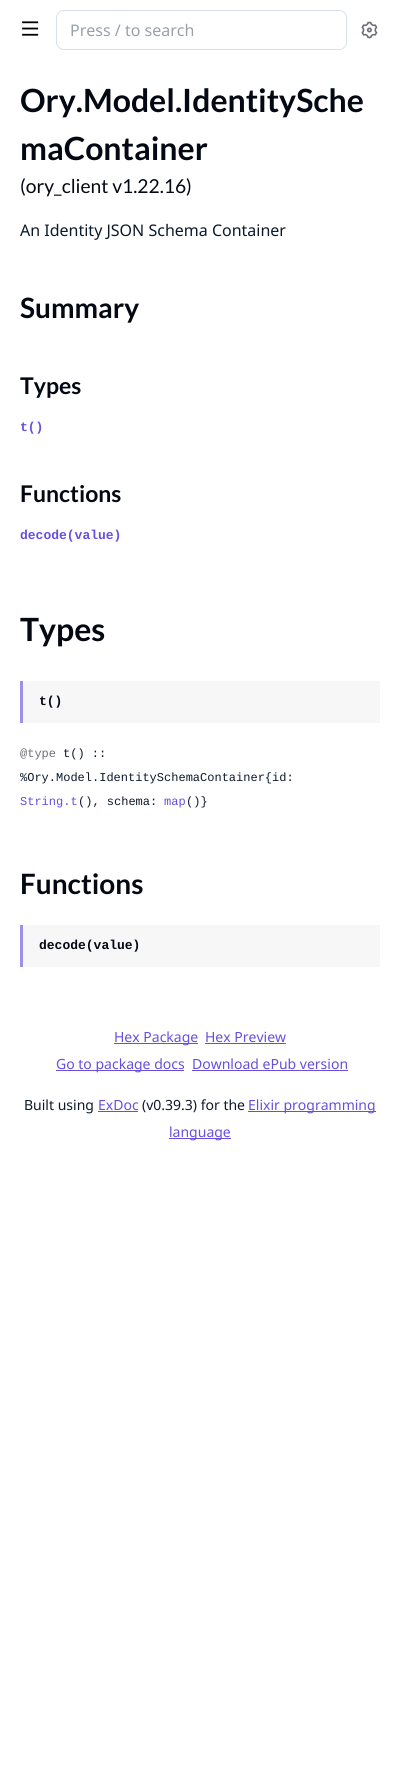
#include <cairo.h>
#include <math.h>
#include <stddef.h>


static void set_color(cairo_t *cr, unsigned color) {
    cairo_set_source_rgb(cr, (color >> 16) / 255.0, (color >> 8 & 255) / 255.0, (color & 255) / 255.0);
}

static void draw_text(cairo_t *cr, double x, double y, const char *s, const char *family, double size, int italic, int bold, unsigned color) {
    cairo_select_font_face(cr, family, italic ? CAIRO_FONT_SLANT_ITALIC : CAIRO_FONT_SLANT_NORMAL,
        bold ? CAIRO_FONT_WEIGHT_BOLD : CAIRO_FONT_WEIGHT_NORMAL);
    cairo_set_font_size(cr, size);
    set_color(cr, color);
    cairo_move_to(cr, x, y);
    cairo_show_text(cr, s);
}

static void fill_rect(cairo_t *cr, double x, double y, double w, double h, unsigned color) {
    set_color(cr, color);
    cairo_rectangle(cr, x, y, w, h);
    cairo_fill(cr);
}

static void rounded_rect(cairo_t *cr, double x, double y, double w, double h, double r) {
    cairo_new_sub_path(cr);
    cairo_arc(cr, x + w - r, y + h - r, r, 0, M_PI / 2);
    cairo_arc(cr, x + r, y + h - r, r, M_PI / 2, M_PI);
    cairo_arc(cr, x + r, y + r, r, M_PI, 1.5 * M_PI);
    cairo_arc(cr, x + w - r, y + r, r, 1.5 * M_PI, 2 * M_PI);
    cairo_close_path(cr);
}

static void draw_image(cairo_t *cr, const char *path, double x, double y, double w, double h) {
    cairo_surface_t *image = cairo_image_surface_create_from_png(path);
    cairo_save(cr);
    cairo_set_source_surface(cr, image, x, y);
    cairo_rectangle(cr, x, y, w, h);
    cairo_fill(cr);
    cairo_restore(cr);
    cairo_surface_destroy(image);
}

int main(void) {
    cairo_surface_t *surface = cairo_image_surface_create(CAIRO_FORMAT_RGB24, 400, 1765);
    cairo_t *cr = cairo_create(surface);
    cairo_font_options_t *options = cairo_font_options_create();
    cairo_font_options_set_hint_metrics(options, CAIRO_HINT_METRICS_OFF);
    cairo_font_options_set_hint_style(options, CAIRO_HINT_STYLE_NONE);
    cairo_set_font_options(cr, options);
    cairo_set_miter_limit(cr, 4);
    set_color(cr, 0xFFFFFF);
    cairo_paint(cr);
    draw_image(cr, "assets/img1.png", 22, 21, 17, 15);
    rounded_rect(cr, 56.5, 10.5, 290, 39, 7.5);
    set_color(cr, 0xD8E0E9);
    cairo_set_line_width(cr, 1);
    cairo_stroke(cr);
    set_color(cr, 0xFFFFFF);
    rounded_rect(cr, 57, 11, 289, 38, 8);
    cairo_fill(cr);
    draw_text(cr, 70, 36, "Press / to search", "Noto Sans", 16, 0, 0, 0x98A1AA);
    draw_image(cr, "assets/img2.png", 361, 21, 17, 18);
    draw_text(cr, 20, 112, "Ory.Model.IdentitySche", "Lato", 32, 0, 1, 0x030812);
    draw_text(cr, 20, 160, "maContainer", "Lato", 32, 0, 1, 0x030812);
    draw_text(cr, 20, 193, "(ory_client v1.22.16)", "Lato", 19.25, 0, 0, 0x030812);
    draw_text(cr, 20, 236, "An Identity JSON Schema Container", "Noto Sans", 16, 0, 0, 0x0D192B);
    draw_text(cr, 20, 318, "Summary", "Lato", 28, 0, 1, 0x030812);
    draw_text(cr, 20, 394, "Types", "Lato", 23, 0, 1, 0x030812);
    draw_text(cr, 20, 431, "t()", "Liberation Mono", 13, 0, 1, 0x674FDE);
    draw_text(cr, 20, 502, "Functions", "Lato", 23, 0, 1, 0x030812);
    draw_text(cr, 20, 539, "decode(value)", "Liberation Mono", 13, 0, 1, 0x674FDE);
    draw_text(cr, 20, 641, "Types", "Lato", 32, 0, 1, 0x030812);
    fill_rect(cr, 23, 681, 357, 42, 0xF7F7F8);
    fill_rect(cr, 20, 681, 3, 42, 0x9F90EA);
    draw_text(cr, 39, 705, "t()", "Liberation Mono", 13, 0, 1, 0x030812);
    draw_text(cr, 20, 757, "@type", "Liberation Mono", 12, 0, 0, 0x6F6F7B);
    draw_text(cr, 63, 757, "t() ::", "Liberation Mono", 12, 0, 0, 0x0D192B);
    draw_text(cr, 20, 781, "%Ory.Model.IdentitySchemaContainer{id:", "Liberation Mono", 12, 0, 0, 0x0D192B);
    draw_text(cr, 20, 805, "String.t", "Liberation Mono", 12, 0, 0, 0x674FDE);
    draw_text(cr, 78, 805, "(), schema:", "Liberation Mono", 12, 0, 0, 0x0D192B);
    draw_text(cr, 164, 805, "map", "Liberation Mono", 12, 0, 0, 0x674FDE);
    draw_text(cr, 186, 805, "()}", "Liberation Mono", 12, 0, 0, 0x0D192B);
    draw_text(cr, 20, 894, "Functions", "Lato", 28, 0, 1, 0x030812);
    fill_rect(cr, 23, 925, 357, 42, 0xF7F7F8);
    fill_rect(cr, 20, 925, 3, 42, 0x9F90EA);
    draw_text(cr, 39, 949, "decode(value)", "Liberation Mono", 13, 0, 1, 0x030812);
    fill_rect(cr, 114, 1043, 84, 1, 0x674FDE);
    draw_text(cr, 114, 1042, "Hex Package", "Noto Sans", 14, 0, 0, 0x674FDE);
    draw_text(cr, 205, 1042, "Hex Preview", "Noto Sans", 14, 0, 0, 0x674FDE);
    fill_rect(cr, 205, 1043, 81, 1, 0x674FDE);
    fill_rect(cr, 56, 1070, 128, 1, 0x674FDE);
    draw_text(cr, 56, 1069, "Go to package docs", "Noto Sans", 14, 0, 0, 0x674FDE);
    draw_text(cr, 192, 1069, "Download ePub version", "Noto Sans", 14, 0, 0, 0x674FDE);
    fill_rect(cr, 192, 1070, 156, 1, 0x674FDE);
    draw_text(cr, 24, 1110, "Built using", "Noto Sans", 14, 0, 0, 0x0D192B);
    draw_text(cr, 98, 1110, "ExDoc", "Noto Sans", 14, 0, 0, 0x674FDE);
    fill_rect(cr, 98, 1111, 40, 1, 0x674FDE);
    draw_text(cr, 142, 1110, "(v0.39.3) for the", "Noto Sans", 14, 0, 0, 0x0D192B);
    fill_rect(cr, 248, 1111, 128, 1, 0x674FDE);
    draw_text(cr, 248, 1110, "Elixir programming", "Noto Sans", 14, 0, 0, 0x674FDE);
    fill_rect(cr, 169, 1138, 62, 1, 0x674FDE);
    draw_text(cr, 169, 1137, "language", "Noto Sans", 14, 0, 0, 0x674FDE);
    cairo_surface_write_to_png(surface, "output.png");
    cairo_font_options_destroy(options);
    cairo_destroy(cr);
    cairo_surface_destroy(surface);
    return 0;
}
